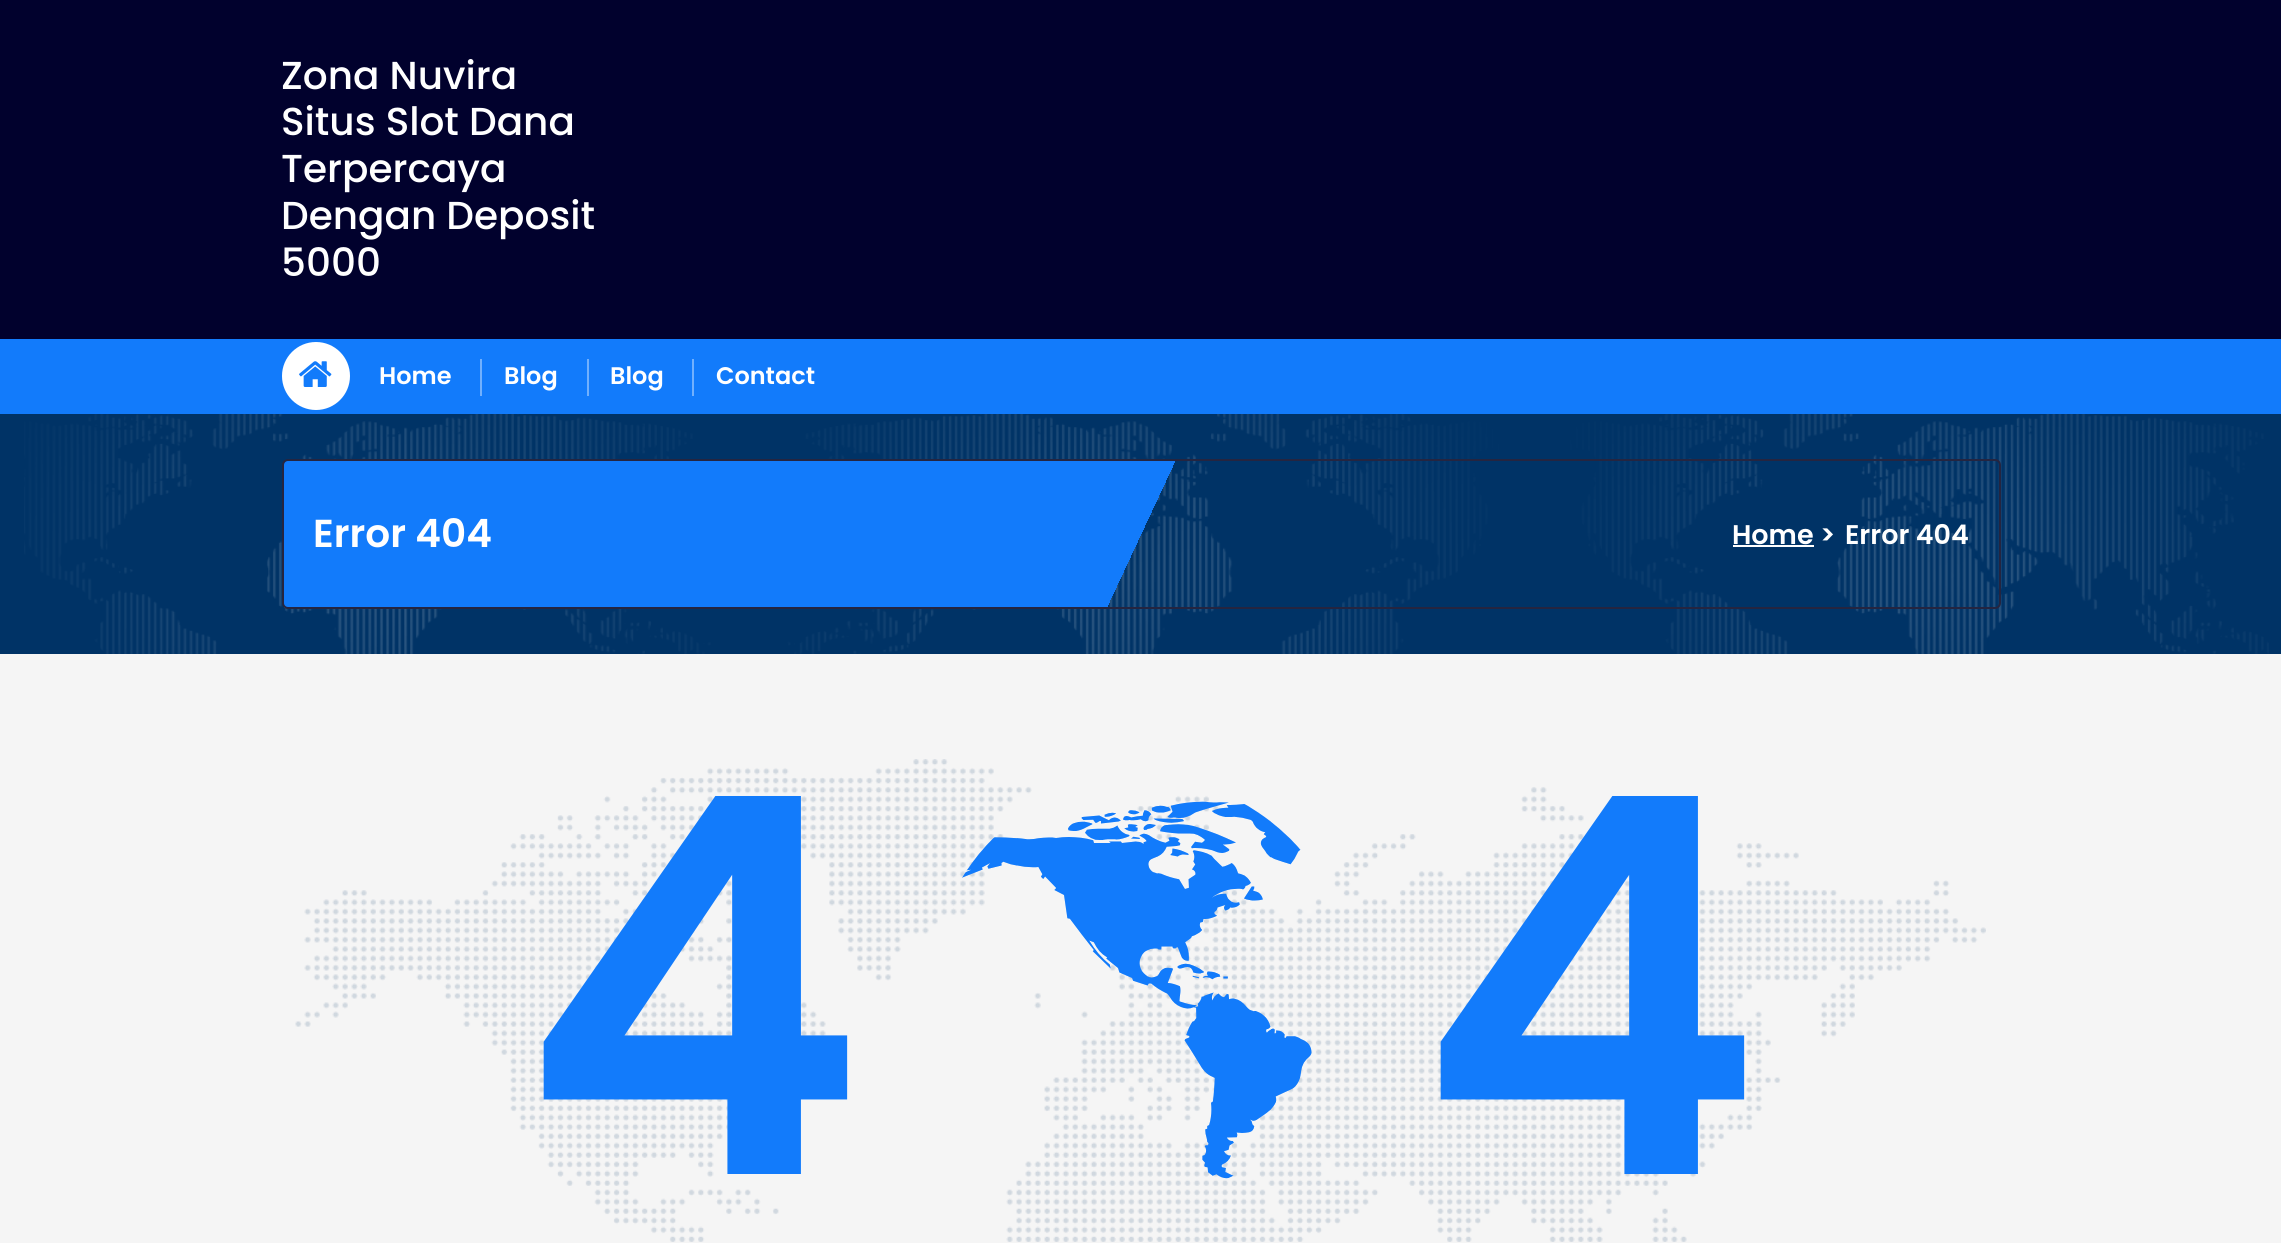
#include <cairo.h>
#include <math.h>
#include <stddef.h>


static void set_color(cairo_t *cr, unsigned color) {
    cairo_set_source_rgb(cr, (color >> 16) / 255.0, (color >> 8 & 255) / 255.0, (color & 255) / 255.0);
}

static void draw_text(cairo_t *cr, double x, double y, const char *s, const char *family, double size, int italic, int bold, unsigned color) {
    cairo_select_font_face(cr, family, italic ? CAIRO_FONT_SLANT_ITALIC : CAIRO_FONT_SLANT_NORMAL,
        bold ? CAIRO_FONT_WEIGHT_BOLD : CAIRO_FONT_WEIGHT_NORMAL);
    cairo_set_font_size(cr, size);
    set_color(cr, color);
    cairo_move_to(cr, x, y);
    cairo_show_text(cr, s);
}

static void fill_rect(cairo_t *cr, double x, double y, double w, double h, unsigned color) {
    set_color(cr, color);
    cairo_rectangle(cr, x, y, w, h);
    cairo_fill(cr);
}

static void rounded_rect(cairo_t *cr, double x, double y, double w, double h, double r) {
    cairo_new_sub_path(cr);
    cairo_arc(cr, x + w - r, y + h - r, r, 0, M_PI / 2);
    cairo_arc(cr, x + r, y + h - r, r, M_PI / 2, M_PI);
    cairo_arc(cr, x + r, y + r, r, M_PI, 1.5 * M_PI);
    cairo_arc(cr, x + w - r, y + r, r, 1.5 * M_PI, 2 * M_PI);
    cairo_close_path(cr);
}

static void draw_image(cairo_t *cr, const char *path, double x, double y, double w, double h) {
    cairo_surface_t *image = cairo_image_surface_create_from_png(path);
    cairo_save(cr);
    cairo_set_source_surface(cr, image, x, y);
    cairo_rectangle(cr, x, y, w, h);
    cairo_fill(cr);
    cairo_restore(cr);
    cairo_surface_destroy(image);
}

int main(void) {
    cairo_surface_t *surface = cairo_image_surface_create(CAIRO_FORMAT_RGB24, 2281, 1243);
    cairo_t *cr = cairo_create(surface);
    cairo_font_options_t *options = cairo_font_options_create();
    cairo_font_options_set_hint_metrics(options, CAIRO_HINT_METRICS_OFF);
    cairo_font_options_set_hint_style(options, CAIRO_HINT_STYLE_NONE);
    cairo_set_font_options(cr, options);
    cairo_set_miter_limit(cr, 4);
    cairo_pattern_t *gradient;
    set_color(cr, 0xF5F5F5);
    cairo_paint(cr);
    fill_rect(cr, 0, 0, 2281, 339, 0x01012D);
    draw_text(cr, 281, 89, "Zona Nuvira", "Poppins Medium", 39, 0, 0, 0xFFFFFF);
    draw_text(cr, 281, 135, "Situs Slot Dana", "Poppins Medium", 39, 0, 0, 0xFFFFFF);
    draw_text(cr, 281, 182, "Terpercaya", "Poppins Medium", 39, 0, 0, 0xFFFFFF);
    draw_text(cr, 281, 229, "Dengan Deposit", "Poppins Medium", 39, 0, 0, 0xFFFFFF);
    draw_text(cr, 281, 276, "5000", "Poppins Medium", 39, 0, 0, 0xFFFFFF);
    fill_rect(cr, 0, 339, 2281, 75, 0x127BFB);
    set_color(cr, 0xFFFFFF);
    cairo_new_path(cr);
    cairo_arc(cr, 316, 376, 34, 0, 2 * M_PI);
    cairo_fill(cr);
    draw_image(cr, "assets/img1.png", 299, 361, 33, 26);
    draw_text(cr, 379, 384, "Home", "Poppins SemiBold", 24, 0, 0, 0xFFFFFF);
    fill_rect(cr, 480, 359, 2, 37, 0x71B0FD);
    draw_text(cr, 504, 384, "Blog", "Poppins SemiBold", 24, 0, 0, 0xFFFFFF);
    fill_rect(cr, 587, 359, 2, 37, 0x71B0FD);
    draw_text(cr, 610, 384, "Blog", "Poppins SemiBold", 24, 0, 0, 0xFFFFFF);
    fill_rect(cr, 692, 359, 2, 37, 0x71B0FD);
    draw_text(cr, 716, 384, "Contact", "Poppins SemiBold", 24, 0, 0, 0xFFFFFF);
    fill_rect(cr, 0, 414, 2281, 240, 0x003366);
    draw_image(cr, "assets/img2.png", 24, 414, 2245, 240);
    gradient = cairo_pattern_create_linear(409, 192, 1874, 876);
    cairo_pattern_add_color_stop_rgba(gradient, 0.5, 0.071, 0.482, 0.984, 1);
    cairo_pattern_add_color_stop_rgba(gradient, 0.5, 0.071, 0.482, 0.984, 0);
    cairo_set_source(cr, gradient);
    cairo_pattern_destroy(gradient);
    cairo_rectangle(cr, 284, 461, 891, 147);
    cairo_fill(cr);
    rounded_rect(cr, 283, 460, 1717, 148, 5);
    set_color(cr, 0x252540);
    cairo_stroke(cr);
    draw_text(cr, 313, 547, "Error 404", "Poppins SemiBold", 39, 0, 0, 0xFFFFFF);
    draw_text(cr, 1732, 544, "Home >", "Poppins SemiBold", 27, 0, 0, 0xFFFFFF);
    fill_rect(cr, 1733, 545, 81, 2, 0xFFFFFF);
    draw_text(cr, 1845, 544, "Error 404", "Poppins SemiBold", 27, 0, 0, 0xFFFFFF);
    draw_image(cr, "assets/img3.png", 295, 759, 1691, 483);
    draw_text(cr, 519, 1174, "4", "Poppins SemiBold", 525, 0, 0, 0x127BFB);
    draw_image(cr, "assets/img4.png", 962, 801, 350, 378);
    draw_image(cr, "assets/img5.png", 962, 801, 350, 378);
    draw_text(cr, 1416, 1174, "4", "Poppins SemiBold", 525, 0, 0, 0x127BFB);
    cairo_surface_write_to_png(surface, "output.png");
    cairo_font_options_destroy(options);
    cairo_destroy(cr);
    cairo_surface_destroy(surface);
    return 0;
}
